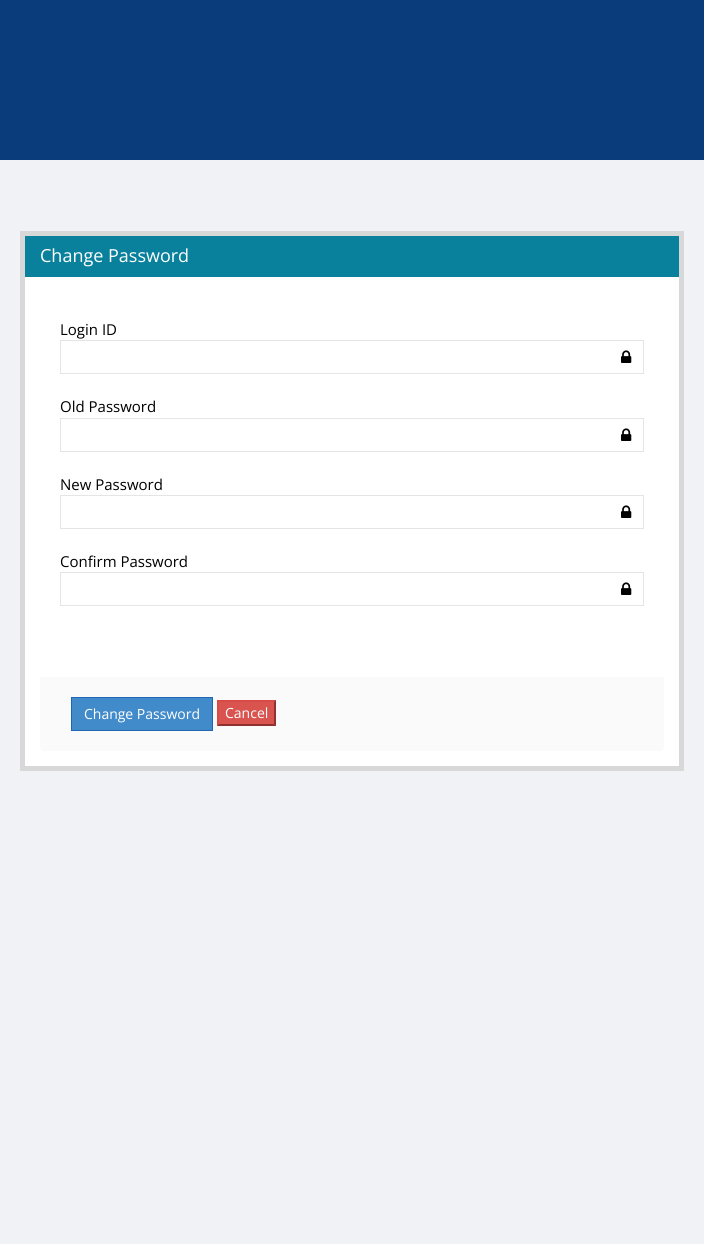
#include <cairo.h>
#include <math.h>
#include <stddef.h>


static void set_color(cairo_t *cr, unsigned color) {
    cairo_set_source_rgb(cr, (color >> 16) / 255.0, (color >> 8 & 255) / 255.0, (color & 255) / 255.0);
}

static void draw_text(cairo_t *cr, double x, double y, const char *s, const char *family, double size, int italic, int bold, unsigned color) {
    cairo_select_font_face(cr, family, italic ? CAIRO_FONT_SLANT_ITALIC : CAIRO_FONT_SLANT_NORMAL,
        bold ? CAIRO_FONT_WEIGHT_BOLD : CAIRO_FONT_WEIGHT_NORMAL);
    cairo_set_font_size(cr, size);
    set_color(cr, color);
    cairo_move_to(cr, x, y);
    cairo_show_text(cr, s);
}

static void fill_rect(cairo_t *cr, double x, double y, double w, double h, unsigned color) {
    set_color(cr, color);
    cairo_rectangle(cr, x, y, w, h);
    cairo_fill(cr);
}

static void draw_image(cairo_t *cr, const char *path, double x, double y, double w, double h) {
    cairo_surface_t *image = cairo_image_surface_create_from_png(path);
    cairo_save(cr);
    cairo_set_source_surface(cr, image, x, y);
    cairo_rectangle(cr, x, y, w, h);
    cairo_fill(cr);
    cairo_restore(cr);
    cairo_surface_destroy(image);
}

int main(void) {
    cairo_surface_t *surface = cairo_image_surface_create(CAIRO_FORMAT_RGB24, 704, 1244);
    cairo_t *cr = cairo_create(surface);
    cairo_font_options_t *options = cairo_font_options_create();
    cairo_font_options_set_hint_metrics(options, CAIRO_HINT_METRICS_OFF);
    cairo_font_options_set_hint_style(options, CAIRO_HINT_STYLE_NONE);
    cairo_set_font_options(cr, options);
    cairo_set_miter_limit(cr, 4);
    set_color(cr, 0xF0F2F5);
    cairo_paint(cr);
    fill_rect(cr, 0, 0, 704, 160, 0x0A3C7B);
    fill_rect(cr, 25, 277, 654, 489, 0xFFFFFF);
    cairo_rectangle(cr, 22.5, 233.5, 659, 535);
    set_color(cr, 0xD8D8D8);
    cairo_set_line_width(cr, 5);
    cairo_stroke(cr);
    fill_rect(cr, 25, 236, 654, 41, 0x0A819C);
    draw_text(cr, 40, 262, "Change Password", "Open Sans", 18, 0, 0, 0xFFFFFF);
    draw_text(cr, 60, 335, "Login ID", "Open Sans", 15, 0, 0, 0x000000);
    cairo_rectangle(cr, 60.5, 340.5, 583, 33);
    set_color(cr, 0xE5E5E5);
    cairo_set_line_width(cr, 1);
    cairo_stroke(cr);
    draw_image(cr, "assets/img1.png", 621, 350, 11, 13);
    draw_text(cr, 60, 412, "Old Password", "Open Sans", 15, 0, 0, 0x000000);
    cairo_rectangle(cr, 60.5, 418.5, 583, 33);
    set_color(cr, 0xE5E5E5);
    cairo_stroke(cr);
    draw_image(cr, "assets/img1.png", 621, 428, 11, 13);
    draw_text(cr, 60, 490, "New Password", "Open Sans", 15, 0, 0, 0x000000);
    cairo_rectangle(cr, 60.5, 495.5, 583, 33);
    set_color(cr, 0xE5E5E5);
    cairo_stroke(cr);
    draw_image(cr, "assets/img1.png", 621, 505, 11, 13);
    draw_text(cr, 60, 567, "Confirm Password", "Open Sans", 15, 0, 0, 0x000000);
    cairo_rectangle(cr, 60.5, 572.5, 583, 33);
    set_color(cr, 0xE5E5E5);
    cairo_stroke(cr);
    draw_image(cr, "assets/img1.png", 621, 582, 11, 13);
    set_color(cr, 0xFAFAFA);
    cairo_new_path(cr);
    cairo_move_to(cr, 40, 677);
    cairo_line_to(cr, 664, 677);
    cairo_line_to(cr, 664, 747);
    cairo_curve_to(cr, 664, 749, 662, 751, 660, 751);
    cairo_line_to(cr, 44, 751);
    cairo_curve_to(cr, 42, 751, 40, 749, 40, 747);
    cairo_close_path(cr);
    cairo_fill(cr);
    set_color(cr, 0x428BCA);
    cairo_rectangle(cr, 71.5, 697.5, 141, 33);
    cairo_fill_preserve(cr);
    set_color(cr, 0x1F68B1);
    cairo_stroke(cr);
    draw_text(cr, 84, 719, "Change Password", "Open Sans", 14, 0, 0, 0xFFFFFF);
    fill_rect(cr, 217, 700, 59, 26, 0xD9534F);
    set_color(cr, 0xD74B47);
    cairo_new_path(cr);
    cairo_move_to(cr, 217, 700);
    cairo_line_to(cr, 276, 700);
    cairo_line_to(cr, 274, 702);
    cairo_line_to(cr, 219, 702);
    cairo_close_path(cr);
    cairo_fill(cr);
    set_color(cr, 0x8F322F);
    cairo_new_path(cr);
    cairo_move_to(cr, 276, 700);
    cairo_line_to(cr, 276, 726);
    cairo_line_to(cr, 274, 724);
    cairo_line_to(cr, 274, 702);
    cairo_close_path(cr);
    cairo_fill(cr);
    cairo_new_path(cr);
    cairo_move_to(cr, 276, 726);
    cairo_line_to(cr, 217, 726);
    cairo_line_to(cr, 219, 724);
    cairo_line_to(cr, 274, 724);
    cairo_close_path(cr);
    cairo_fill(cr);
    set_color(cr, 0xD74B47);
    cairo_new_path(cr);
    cairo_move_to(cr, 217, 726);
    cairo_line_to(cr, 217, 700);
    cairo_line_to(cr, 219, 702);
    cairo_line_to(cr, 219, 724);
    cairo_close_path(cr);
    cairo_fill(cr);
    draw_text(cr, 225, 718, "Cancel", "Open Sans", 14, 0, 0, 0xFFFFFF);
    cairo_surface_write_to_png(surface, "output.png");
    cairo_font_options_destroy(options);
    cairo_destroy(cr);
    cairo_surface_destroy(surface);
    return 0;
}
